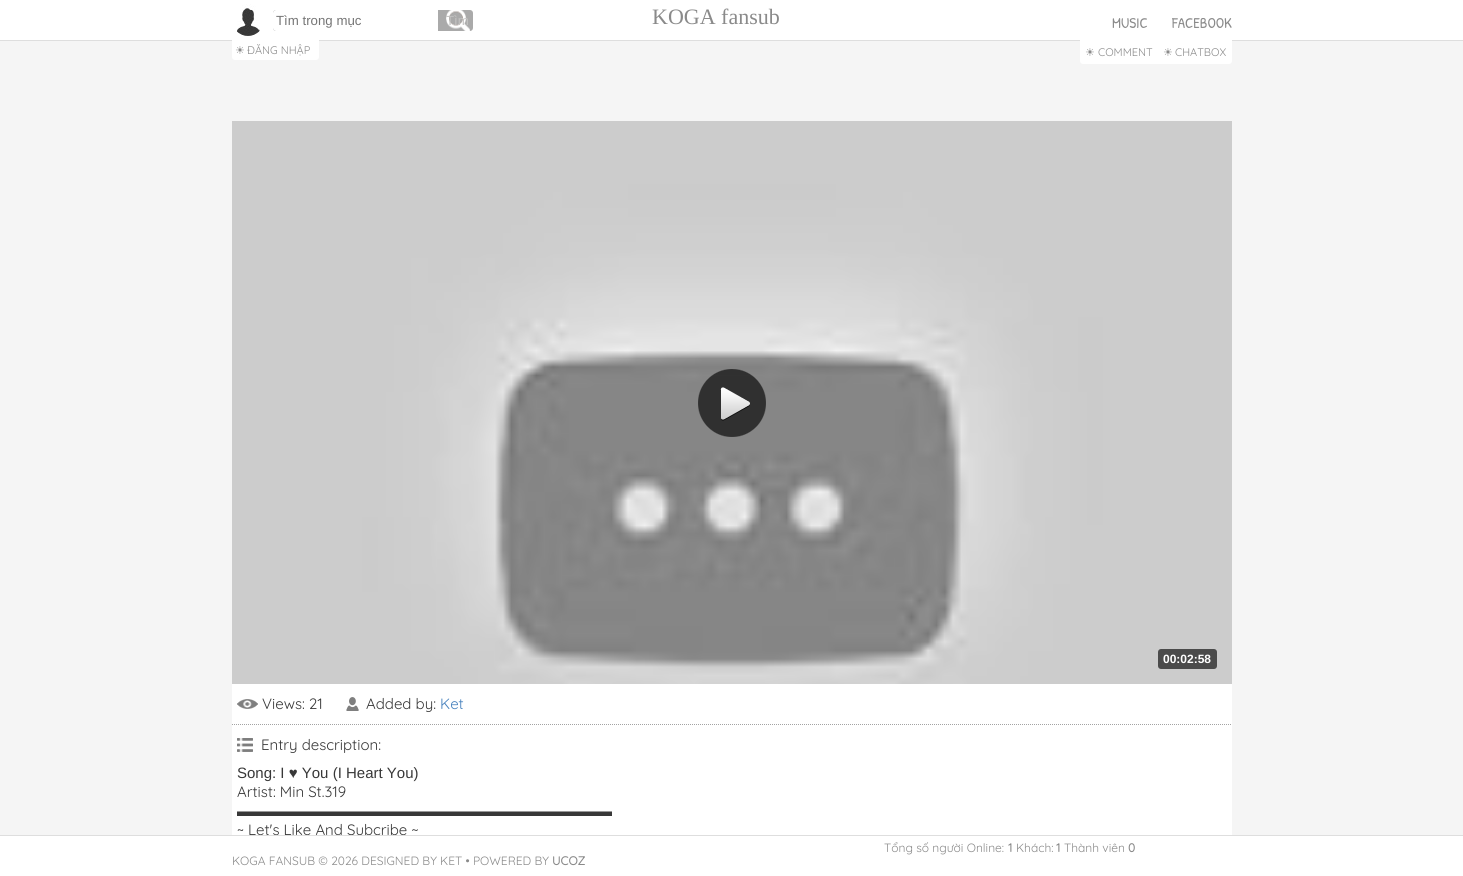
#include <cairo.h>
#include <math.h>
#include <stddef.h>


static void set_color(cairo_t *cr, unsigned color) {
    cairo_set_source_rgb(cr, (color >> 16) / 255.0, (color >> 8 & 255) / 255.0, (color & 255) / 255.0);
}

static void draw_text(cairo_t *cr, double x, double y, const char *s, const char *family, double size, int italic, int bold, unsigned color) {
    cairo_select_font_face(cr, family, italic ? CAIRO_FONT_SLANT_ITALIC : CAIRO_FONT_SLANT_NORMAL,
        bold ? CAIRO_FONT_WEIGHT_BOLD : CAIRO_FONT_WEIGHT_NORMAL);
    cairo_set_font_size(cr, size);
    set_color(cr, color);
    cairo_move_to(cr, x, y);
    cairo_show_text(cr, s);
}

static void fill_rect(cairo_t *cr, double x, double y, double w, double h, unsigned color) {
    set_color(cr, color);
    cairo_rectangle(cr, x, y, w, h);
    cairo_fill(cr);
}

static void rounded_rect(cairo_t *cr, double x, double y, double w, double h, double r) {
    cairo_new_sub_path(cr);
    cairo_arc(cr, x + w - r, y + h - r, r, 0, M_PI / 2);
    cairo_arc(cr, x + r, y + h - r, r, M_PI / 2, M_PI);
    cairo_arc(cr, x + r, y + r, r, M_PI, 1.5 * M_PI);
    cairo_arc(cr, x + w - r, y + r, r, 1.5 * M_PI, 2 * M_PI);
    cairo_close_path(cr);
}

static void draw_image(cairo_t *cr, const char *path, double x, double y, double w, double h) {
    cairo_surface_t *image = cairo_image_surface_create_from_png(path);
    cairo_save(cr);
    cairo_set_source_surface(cr, image, x, y);
    cairo_rectangle(cr, x, y, w, h);
    cairo_fill(cr);
    cairo_restore(cr);
    cairo_surface_destroy(image);
}

int main(void) {
    cairo_surface_t *surface = cairo_image_surface_create(CAIRO_FORMAT_RGB24, 1463, 876);
    cairo_t *cr = cairo_create(surface);
    cairo_font_options_t *options = cairo_font_options_create();
    cairo_font_options_set_hint_metrics(options, CAIRO_HINT_METRICS_OFF);
    cairo_font_options_set_hint_style(options, CAIRO_HINT_STYLE_NONE);
    cairo_set_font_options(cr, options);
    cairo_set_miter_limit(cr, 4);
    set_color(cr, 0xF5F5F5);
    cairo_paint(cr);
    fill_rect(cr, 0, 0, 1463, 40, 0xFFFFFF);
    fill_rect(cr, 0, 40, 1463, 1, 0xDEDEDE);
    draw_image(cr, "assets/img1.png", 237, 4, 23, 32);
    set_color(cr, 0xAAAAAA);
    rounded_rect(cr, 273, 10, 200, 21, 3);
    cairo_fill(cr);
    draw_image(cr, "assets/img2.png", 446, 10, 24, 21);
    set_color(cr, 0xFFFFFF);
    cairo_new_path(cr);
    cairo_move_to(cr, 276, 10);
    cairo_line_to(cr, 438, 10);
    cairo_line_to(cr, 438, 31);
    cairo_line_to(cr, 276, 31);
    cairo_curve_to(cr, 274.5, 31, 273, 29.5, 273, 28);
    cairo_line_to(cr, 273, 13);
    cairo_curve_to(cr, 273, 11.5, 274.5, 10, 276, 10);
    cairo_close_path(cr);
    cairo_fill(cr);
    draw_text(cr, 276, 25, "Tìm trong mục", "Liberation Sans", 13.25, 0, 0, 0x757575);
    draw_text(cr, 446, 25, "Tìm", "Liberation Sans", 13.25, 0, 0, 0xC3C2C1);
    set_color(cr, 0xFFFFFF);
    cairo_new_path(cr);
    cairo_move_to(cr, 232, 40);
    cairo_line_to(cr, 319, 40);
    cairo_line_to(cr, 319, 57);
    cairo_curve_to(cr, 319, 58.5, 317.5, 60, 316, 60);
    cairo_line_to(cr, 235, 60);
    cairo_curve_to(cr, 233.5, 60, 232, 58.5, 232, 57);
    cairo_close_path(cr);
    cairo_fill(cr);
    draw_text(cr, 235, 54, "☀", "DejaVu Sans", 11, 0, 0, 0x8A8A8A);
    draw_text(cr, 247, 54, "ĐĂNG NHẬP", "Quicksand Light", 11, 0, 0, 0x8A8A8A);
    draw_text(cr, 652, 24, "KOGA fansub", "Liberation Serif", 22, 0, 0, 0x8A8A8A);
    draw_text(cr, 1112, 28, "MUSIC", "Patrick Hand SC", 15, 0, 0, 0x8A8A8A);
    draw_text(cr, 1172, 28, "FACEBOOK", "Patrick Hand SC", 15, 0, 0, 0x8A8A8A);
    set_color(cr, 0xFFFFFF);
    cairo_new_path(cr);
    cairo_move_to(cr, 1080, 40);
    cairo_line_to(cr, 1158, 40);
    cairo_line_to(cr, 1158, 64);
    cairo_line_to(cr, 1083, 64);
    cairo_curve_to(cr, 1081.5, 64, 1080, 62.5, 1080, 61);
    cairo_close_path(cr);
    cairo_fill(cr);
    draw_text(cr, 1085, 56, "☀", "DejaVu Sans", 11, 0, 0, 0x8A8A8A);
    draw_text(cr, 1098, 56, "COMMENT", "Quicksand Light", 11, 0, 0, 0x8A8A8A);
    set_color(cr, 0xFFFFFF);
    cairo_new_path(cr);
    cairo_move_to(cr, 1158, 40);
    cairo_line_to(cr, 1232, 40);
    cairo_line_to(cr, 1232, 61);
    cairo_curve_to(cr, 1232, 62.5, 1230.5, 64, 1229, 64);
    cairo_line_to(cr, 1158, 64);
    cairo_close_path(cr);
    cairo_fill(cr);
    draw_text(cr, 1163, 56, "☀", "DejaVu Sans", 11, 0, 0, 0x8A8A8A);
    draw_text(cr, 1175, 56, "CHATBOX", "Quicksand Light", 11, 0, 0, 0x8A8A8A);
    fill_rect(cr, 232, 684, 1000, 151, 0xFFFFFF);
    draw_image(cr, "assets/img3.png", 232, 121, 1000, 563);
    draw_image(cr, "assets/img4.png", 698, 369, 68, 68);
    set_color(cr, 0x4B4B4B);
    rounded_rect(cr, 1158, 649, 59, 20, 3);
    cairo_fill(cr);
    draw_text(cr, 1163, 663, "00:02:58", "Liberation Sans", 12, 0, 1, 0xFFFFFF);
    draw_image(cr, "assets/img5.png", 237, 699, 21, 10);
    draw_text(cr, 262, 709, "Views: 21", "Quicksand Light", 15, 0, 0, 0x383838);
    draw_image(cr, "assets/img6.png", 346, 697, 13, 14);
    draw_text(cr, 366, 709, "Added by:", "Quicksand Light", 15, 0, 0, 0x383838);
    draw_text(cr, 440, 709, "Ket", "Quicksand Light", 15, 0, 0, 0x4681BD);
    draw_image(cr, "assets/img7.png", 232, 724, 999, 1);
    draw_image(cr, "assets/img8.png", 237, 738, 16, 14);
    draw_text(cr, 261, 750, "Entry description:", "Quicksand Light", 15, 0, 0, 0x383838);
    draw_text(cr, 237, 778, "Song: I ♥ You (I Heart You)", "Liberation Sans", 15, 0, 0, 0x383838);
    draw_text(cr, 237, 797, "Artist: Min St.319", "Quicksand Light", 15, 0, 0, 0x383838);
    draw_text(cr, 237, 816, "▬▬▬▬▬▬▬▬▬▬▬▬▬▬▬▬▬▬▬▬▬▬▬▬▬", "Liberation Sans", 15, 0, 0, 0x383838);
    draw_text(cr, 237, 835, "~ Let's Like And Subcribe ~", "Quicksand Light", 15, 0, 0, 0x383838);
    fill_rect(cr, 0, 836, 1463, 40, 0xFFFFFF);
    fill_rect(cr, 0, 835, 1463, 1, 0xDEDEDE);
    draw_text(cr, 884, 852, "Tổng số người Online:", "Quicksand Light", 12, 0, 0, 0x8A8A8A);
    draw_text(cr, 1008, 852, "1", "Quicksand", 12, 0, 1, 0x8A8A8A);
    draw_text(cr, 1016, 852, "Khách:", "Quicksand Light", 12, 0, 0, 0x8A8A8A);
    draw_text(cr, 1056, 852, "1", "Quicksand", 12, 0, 1, 0x8A8A8A);
    draw_text(cr, 1064, 852, "Thành viên", "Quicksand Light", 12, 0, 0, 0x8A8A8A);
    draw_text(cr, 1128, 852, "0", "Quicksand", 12, 0, 1, 0x8A8A8A);
    draw_text(cr, 232, 865, "KOGA FANSUB © 2026 DESIGNED BY KET • POWERED BY", "Quicksand Light", 12, 0, 0, 0x8A8A8A);
    draw_text(cr, 552, 865, "UCOZ", "Quicksand", 12, 0, 1, 0x8A8A8A);
    cairo_surface_write_to_png(surface, "output.png");
    cairo_font_options_destroy(options);
    cairo_destroy(cr);
    cairo_surface_destroy(surface);
    return 0;
}
